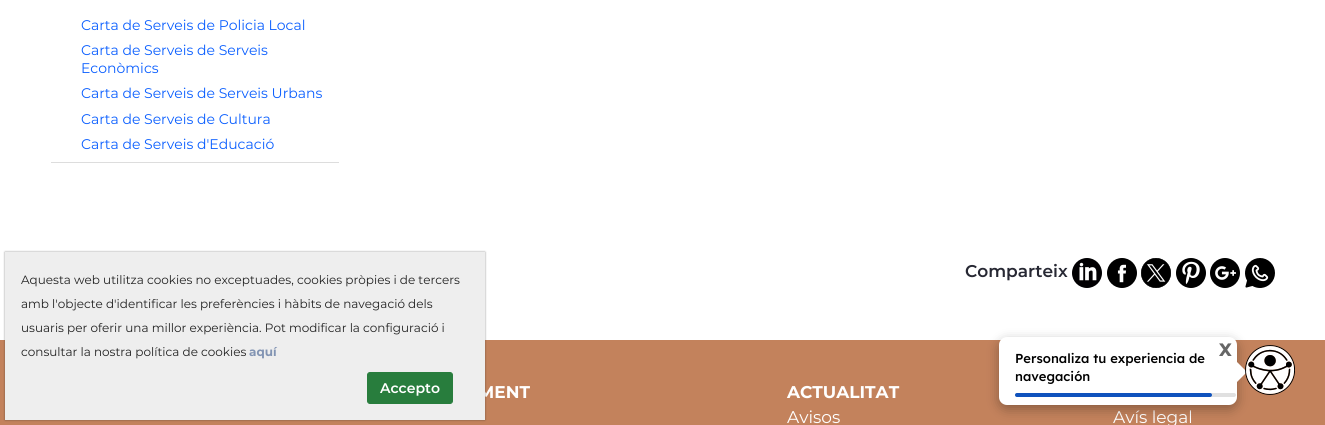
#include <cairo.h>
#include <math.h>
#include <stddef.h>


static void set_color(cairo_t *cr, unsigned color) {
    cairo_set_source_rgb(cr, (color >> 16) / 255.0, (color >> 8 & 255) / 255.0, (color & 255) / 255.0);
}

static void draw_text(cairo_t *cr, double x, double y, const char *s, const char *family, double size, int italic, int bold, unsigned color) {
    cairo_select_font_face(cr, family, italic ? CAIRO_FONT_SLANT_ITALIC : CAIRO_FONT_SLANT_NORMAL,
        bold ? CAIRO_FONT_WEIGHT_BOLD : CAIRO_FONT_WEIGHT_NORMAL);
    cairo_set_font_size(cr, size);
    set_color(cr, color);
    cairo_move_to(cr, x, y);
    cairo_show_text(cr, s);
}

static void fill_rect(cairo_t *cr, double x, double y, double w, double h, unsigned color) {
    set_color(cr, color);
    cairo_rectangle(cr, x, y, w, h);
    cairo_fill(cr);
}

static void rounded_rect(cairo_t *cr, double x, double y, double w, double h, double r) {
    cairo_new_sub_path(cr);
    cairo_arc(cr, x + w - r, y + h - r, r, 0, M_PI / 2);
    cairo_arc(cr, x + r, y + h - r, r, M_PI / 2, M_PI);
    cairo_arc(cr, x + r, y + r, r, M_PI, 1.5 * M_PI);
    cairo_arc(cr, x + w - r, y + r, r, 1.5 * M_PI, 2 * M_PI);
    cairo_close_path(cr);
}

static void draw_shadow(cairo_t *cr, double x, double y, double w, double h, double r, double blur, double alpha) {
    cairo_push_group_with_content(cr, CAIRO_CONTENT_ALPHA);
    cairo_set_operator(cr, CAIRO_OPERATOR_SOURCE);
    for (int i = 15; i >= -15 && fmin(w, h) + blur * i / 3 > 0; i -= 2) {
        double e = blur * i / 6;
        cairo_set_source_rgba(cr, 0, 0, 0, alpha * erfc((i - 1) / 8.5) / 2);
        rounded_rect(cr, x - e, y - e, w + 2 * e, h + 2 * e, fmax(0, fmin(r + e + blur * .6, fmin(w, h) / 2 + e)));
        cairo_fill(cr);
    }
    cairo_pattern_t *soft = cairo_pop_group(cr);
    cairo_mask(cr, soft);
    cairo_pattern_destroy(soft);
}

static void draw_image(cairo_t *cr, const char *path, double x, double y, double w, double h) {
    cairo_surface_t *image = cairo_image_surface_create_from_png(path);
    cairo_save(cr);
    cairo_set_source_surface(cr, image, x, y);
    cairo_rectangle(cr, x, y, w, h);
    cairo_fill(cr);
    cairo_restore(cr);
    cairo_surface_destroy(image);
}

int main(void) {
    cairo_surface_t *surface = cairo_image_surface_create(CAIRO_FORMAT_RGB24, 1325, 425);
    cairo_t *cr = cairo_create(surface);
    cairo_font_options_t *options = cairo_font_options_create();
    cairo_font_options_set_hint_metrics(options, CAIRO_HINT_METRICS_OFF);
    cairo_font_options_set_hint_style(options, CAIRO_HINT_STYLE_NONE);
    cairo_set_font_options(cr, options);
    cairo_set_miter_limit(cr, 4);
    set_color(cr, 0xFFFFFF);
    cairo_paint(cr);
    fill_rect(cr, 51, 162, 288, 1, 0xDDDDDD);
    draw_text(cr, 81, 30, "Carta de Serveis de Policia Local", "Montserrat", 14, 0, 0, 0x0B5FFF);
    draw_text(cr, 81, 55, "Carta de Serveis de Serveis", "Montserrat", 14, 0, 0, 0x0B5FFF);
    draw_text(cr, 81, 73, "Econòmics", "Montserrat", 14, 0, 0, 0x0B5FFF);
    draw_text(cr, 81, 98, "Carta de Serveis de Serveis Urbans", "Montserrat", 14, 0, 0, 0x0B5FFF);
    draw_text(cr, 81, 124, "Carta de Serveis de Cultura", "Montserrat", 14, 0, 0, 0x0B5FFF);
    draw_text(cr, 81, 149, "Carta de Serveis d'Educació", "Montserrat", 14, 0, 0, 0x0B5FFF);
    draw_text(cr, 965, 277, "Comparteix", "Montserrat SemiBold", 17, 0, 0, 0x272833);
    draw_image(cr, "assets/img1.png", 1072, 258, 30, 30);
    draw_image(cr, "assets/img2.png", 1107, 258, 30, 30);
    draw_image(cr, "assets/img3.png", 1141, 258, 30, 30);
    draw_image(cr, "assets/img4.png", 1176, 258, 30, 30);
    draw_image(cr, "assets/img5.png", 1210, 258, 30, 30);
    draw_image(cr, "assets/img6.png", 1245, 258, 30, 30);
    fill_rect(cr, 0, 340, 1325, 85, 0xC3825C);
    draw_text(cr, 478, 398, "MENT", "Montserrat", 17, 0, 1, 0xFFFFFF);
    draw_text(cr, 787, 398, "ACTUALITAT", "Montserrat", 17, 0, 1, 0xFFFFFF);
    draw_text(cr, 787, 423, "Avisos", "Montserrat", 17, 0, 0, 0xFFFFFF);
    draw_text(cr, 1113, 423, "Avís legal", "Montserrat", 17, 0, 0, 0xFFFFFF);
    set_color(cr, 0x222222);
    draw_shadow(cr, 5, 252, 480, 168, 0, 1, 0.5);
    fill_rect(cr, 5, 252, 480, 168, 0xEEEEEE);
    draw_text(cr, 21, 284, "Aquesta web utilitza cookies no exceptuades, cookies pròpies i de tercers", "Montserrat", 12, 0, 0, 0x222222);
    draw_text(cr, 21, 308, "amb l'objecte d'identificar les preferències i hàbits de navegació dels", "Montserrat", 12, 0, 0, 0x222222);
    draw_text(cr, 21, 332, "usuaris per oferir una millor experiència. Pot modificar la configuració i", "Montserrat", 12, 0, 0, 0x222222);
    draw_text(cr, 21, 356, "consultar la nostra política de cookies", "Montserrat", 12, 0, 0, 0x222222);
    draw_text(cr, 249, 356, "aquí", "Montserrat", 12, 0, 1, 0x8294B3);
    set_color(cr, 0x287D3D);
    rounded_rect(cr, 367.5, 372.5, 85, 31, 2.5);
    cairo_fill_preserve(cr);
    cairo_set_line_width(cr, 1);
    cairo_stroke(cr);
    draw_text(cr, 380, 393, "Accepto", "Montserrat SemiBold", 14, 0, 0, 0xFFFFFF);
    set_color(cr, 0x000000);
    draw_shadow(cr, 999, 341, 238, 68, 8, 6, 0.3);
    set_color(cr, 0xFFFFFF);
    rounded_rect(cr, 999, 337, 238, 68, 8);
    cairo_fill(cr);
    draw_text(cr, 1219, 356, "X", "Lexend", 18, 0, 1, 0x666666);
    draw_text(cr, 1015, 363, "Personaliza tu experiencia de", "Lexend Medium", 13, 0, 0, 0x000000);
    draw_text(cr, 1015, 381, "navegación", "Lexend Medium", 13, 0, 0, 0x000000);
    set_color(cr, 0xFFFFFF);
    cairo_new_path(cr);
    cairo_move_to(cr, 1237, 382);
    cairo_line_to(cr, 1237, 362);
    cairo_line_to(cr, 1247, 372);
    cairo_close_path(cr);
    cairo_fill(cr);
    set_color(cr, 0xE0E0E0);
    rounded_rect(cr, 1015, 393, 221, 4, 2);
    cairo_fill(cr);
    set_color(cr, 0x0F52BD);
    rounded_rect(cr, 1015, 393, 197, 4, 2);
    cairo_fill(cr);
    draw_image(cr, "assets/img7.png", 1245, 345, 50, 50);
    cairo_surface_write_to_png(surface, "output.png");
    cairo_font_options_destroy(options);
    cairo_destroy(cr);
    cairo_surface_destroy(surface);
    return 0;
}
